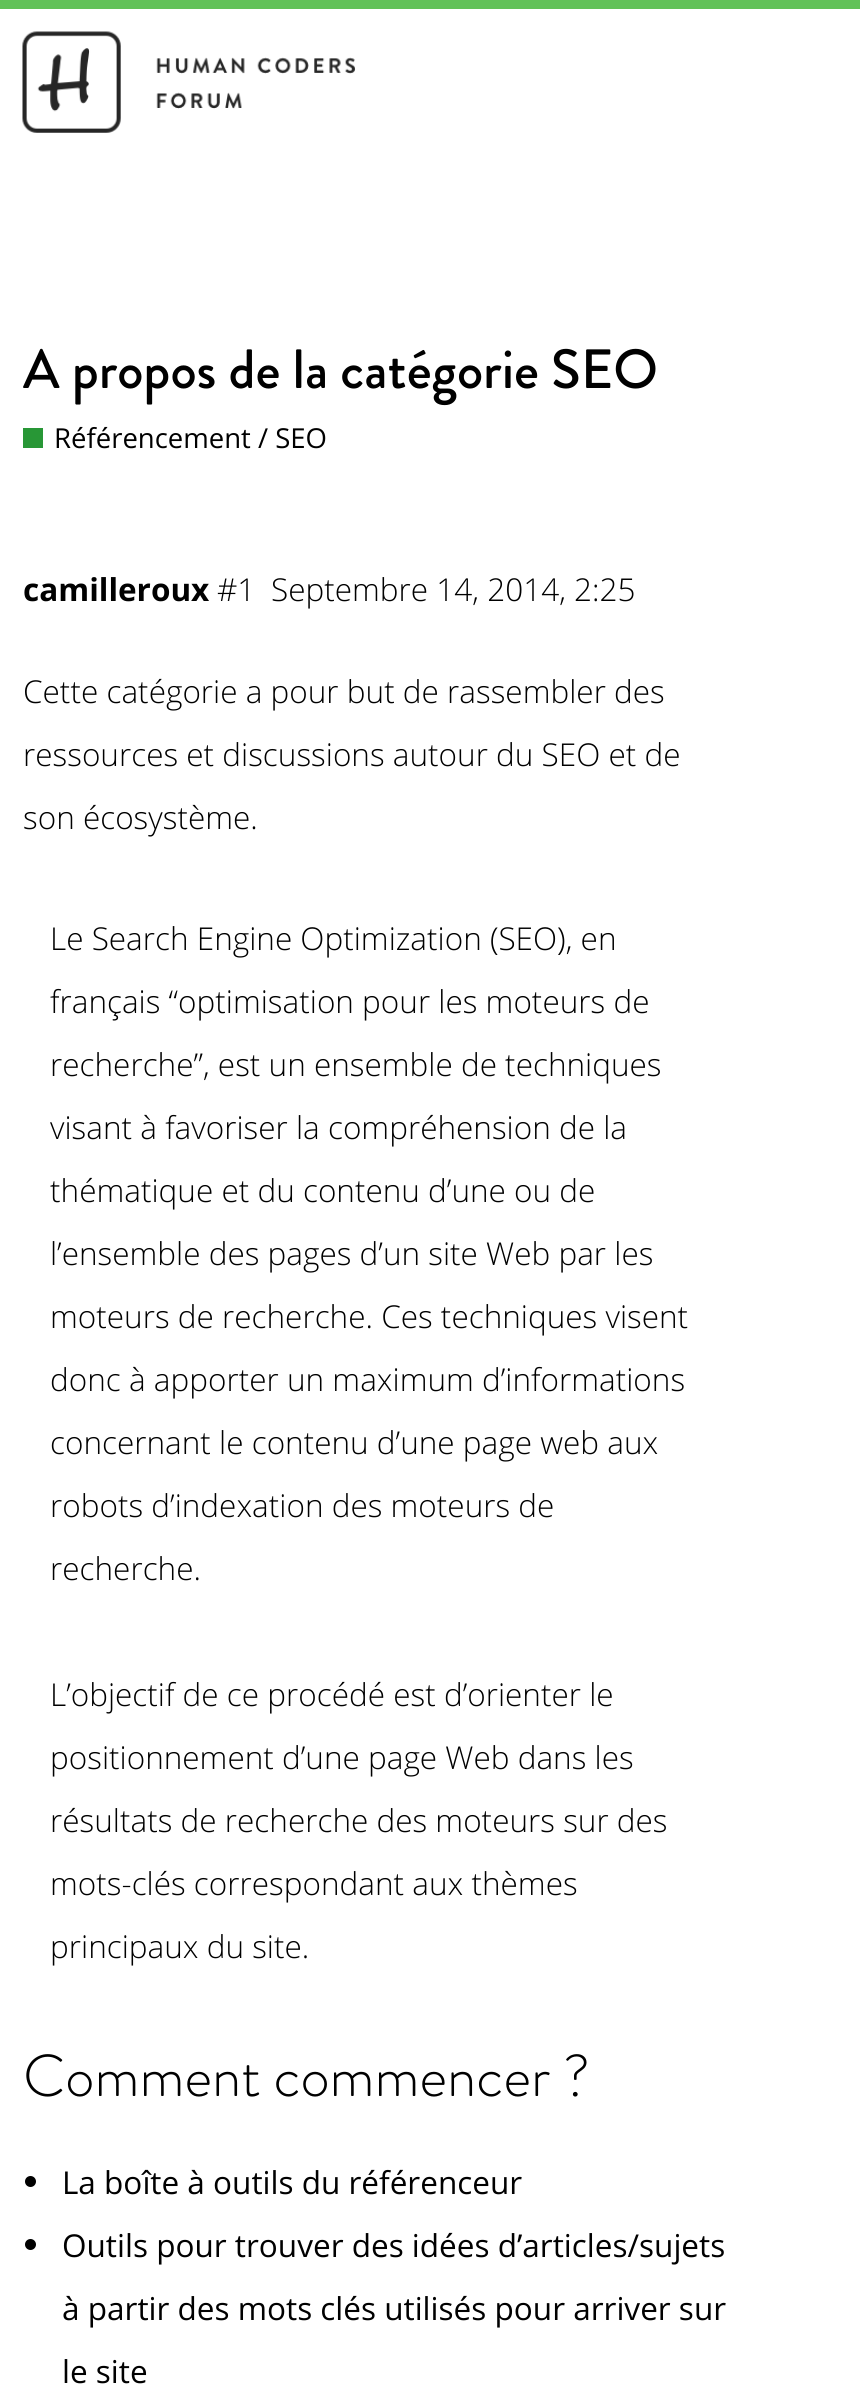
#include <cairo.h>
#include <math.h>
#include <stddef.h>


static void set_color(cairo_t *cr, unsigned color) {
    cairo_set_source_rgb(cr, (color >> 16) / 255.0, (color >> 8 & 255) / 255.0, (color & 255) / 255.0);
}

static void draw_text(cairo_t *cr, double x, double y, const char *s, const char *family, double size, int italic, int bold, unsigned color) {
    cairo_select_font_face(cr, family, italic ? CAIRO_FONT_SLANT_ITALIC : CAIRO_FONT_SLANT_NORMAL,
        bold ? CAIRO_FONT_WEIGHT_BOLD : CAIRO_FONT_WEIGHT_NORMAL);
    cairo_set_font_size(cr, size);
    set_color(cr, color);
    cairo_move_to(cr, x, y);
    cairo_show_text(cr, s);
}

static void fill_rect(cairo_t *cr, double x, double y, double w, double h, unsigned color) {
    set_color(cr, color);
    cairo_rectangle(cr, x, y, w, h);
    cairo_fill(cr);
}

static void draw_image(cairo_t *cr, const char *path, double x, double y, double w, double h) {
    cairo_surface_t *image = cairo_image_surface_create_from_png(path);
    cairo_save(cr);
    cairo_set_source_surface(cr, image, x, y);
    cairo_rectangle(cr, x, y, w, h);
    cairo_fill(cr);
    cairo_restore(cr);
    cairo_surface_destroy(image);
}

int main(void) {
    cairo_surface_t *surface = cairo_image_surface_create(CAIRO_FORMAT_RGB24, 860, 2389);
    cairo_t *cr = cairo_create(surface);
    cairo_font_options_t *options = cairo_font_options_create();
    cairo_font_options_set_hint_metrics(options, CAIRO_HINT_METRICS_OFF);
    cairo_font_options_set_hint_style(options, CAIRO_HINT_STYLE_NONE);
    cairo_set_font_options(cr, options);
    cairo_set_miter_limit(cr, 4);
    set_color(cr, 0xFFFFFF);
    cairo_paint(cr);
    fill_rect(cr, 0, 0, 860, 9, 0x61C258);
    draw_image(cr, "assets/img1.png", 22, 31, 334, 102);
    draw_text(cr, 23, 388, "A propos de la catégorie SEO", "Brandon Grotesque Medium", 55.2, 0, 0, 0x000000);
    fill_rect(cr, 23, 428, 20, 20, 0x289736);
    draw_text(cr, 54, 448, "Référencement / SEO", "Open Sans", 27.5, 0, 0, 0x000000);
    draw_text(cr, 23, 601, "camilleroux", "Open Sans", 31.5, 0, 1, 0x000000);
    draw_text(cr, 217, 601, "#1", "Open Sans Light", 31.5, 0, 0, 0x000000);
    draw_text(cr, 271, 601, "Septembre 14, 2014, 2:25", "Open Sans Light", 31.5, 0, 0, 0x000000);
    draw_text(cr, 23, 703, "Cette catégorie a pour but de rassembler des", "Open Sans Light", 31.5, 0, 0, 0x000000);
    draw_text(cr, 23, 766, "ressources et discussions autour du SEO et de", "Open Sans Light", 31.5, 0, 0, 0x000000);
    draw_text(cr, 23, 829, "son écosystème.", "Open Sans Light", 31.5, 0, 0, 0x000000);
    draw_text(cr, 50, 950, "Le Search Engine Optimization (SEO), en", "Open Sans Light", 31.5, 0, 0, 0x000000);
    draw_text(cr, 50, 1013, "français “optimisation pour les moteurs de", "Open Sans Light", 31.5, 0, 0, 0x000000);
    draw_text(cr, 50, 1076, "recherche”, est un ensemble de techniques", "Open Sans Light", 31.5, 0, 0, 0x000000);
    draw_text(cr, 50, 1139, "visant à favoriser la compréhension de la", "Open Sans Light", 31.5, 0, 0, 0x000000);
    draw_text(cr, 50, 1202, "thématique et du contenu d’une ou de", "Open Sans Light", 31.5, 0, 0, 0x000000);
    draw_text(cr, 50, 1265, "l’ensemble des pages d’un site Web par les", "Open Sans Light", 31.5, 0, 0, 0x000000);
    draw_text(cr, 50, 1328, "moteurs de recherche. Ces techniques visent", "Open Sans Light", 31.5, 0, 0, 0x000000);
    draw_text(cr, 50, 1391, "donc à apporter un maximum d’informations", "Open Sans Light", 31.5, 0, 0, 0x000000);
    draw_text(cr, 50, 1454, "concernant le contenu d’une page web aux", "Open Sans Light", 31.5, 0, 0, 0x000000);
    draw_text(cr, 50, 1517, "robots d’indexation des moteurs de", "Open Sans Light", 31.5, 0, 0, 0x000000);
    draw_text(cr, 50, 1580, "recherche.", "Open Sans Light", 31.5, 0, 0, 0x000000);
    draw_text(cr, 50, 1706, "L’objectif de ce procédé est d’orienter le", "Open Sans Light", 31.5, 0, 0, 0x000000);
    draw_text(cr, 50, 1769, "positionnement d’une page Web dans les", "Open Sans Light", 31.5, 0, 0, 0x000000);
    draw_text(cr, 50, 1832, "résultats de recherche des moteurs sur des", "Open Sans Light", 31.5, 0, 0, 0x000000);
    draw_text(cr, 50, 1895, "mots-clés correspondant aux thèmes", "Open Sans Light", 31.5, 0, 0, 0x000000);
    draw_text(cr, 50, 1958, "principaux du site.", "Open Sans Light", 31.5, 0, 0, 0x000000);
    draw_text(cr, 23, 2096, "Comment commencer ?", "Brandon Grotesque Light", 59, 0, 0, 0x000000);
    cairo_new_path(cr);
    cairo_arc(cr, 30.5, 2181.5, 5.5, 0, 2 * M_PI);
    cairo_fill(cr);
    draw_text(cr, 62, 2194, "La boîte à outils du référenceur", "Open Sans", 31.5, 0, 0, 0x000000);
    cairo_new_path(cr);
    cairo_arc(cr, 30.5, 2244.5, 5.5, 0, 2 * M_PI);
    cairo_fill(cr);
    draw_text(cr, 62, 2257, "Outils pour trouver des idées d’articles/sujets", "Open Sans", 31.5, 0, 0, 0x000000);
    draw_text(cr, 62, 2320, "à partir des mots clés utilisés pour arriver sur", "Open Sans", 31.5, 0, 0, 0x000000);
    draw_text(cr, 62, 2383, "le site", "Open Sans", 31.5, 0, 0, 0x000000);
    cairo_surface_write_to_png(surface, "output.png");
    cairo_font_options_destroy(options);
    cairo_destroy(cr);
    cairo_surface_destroy(surface);
    return 0;
}
